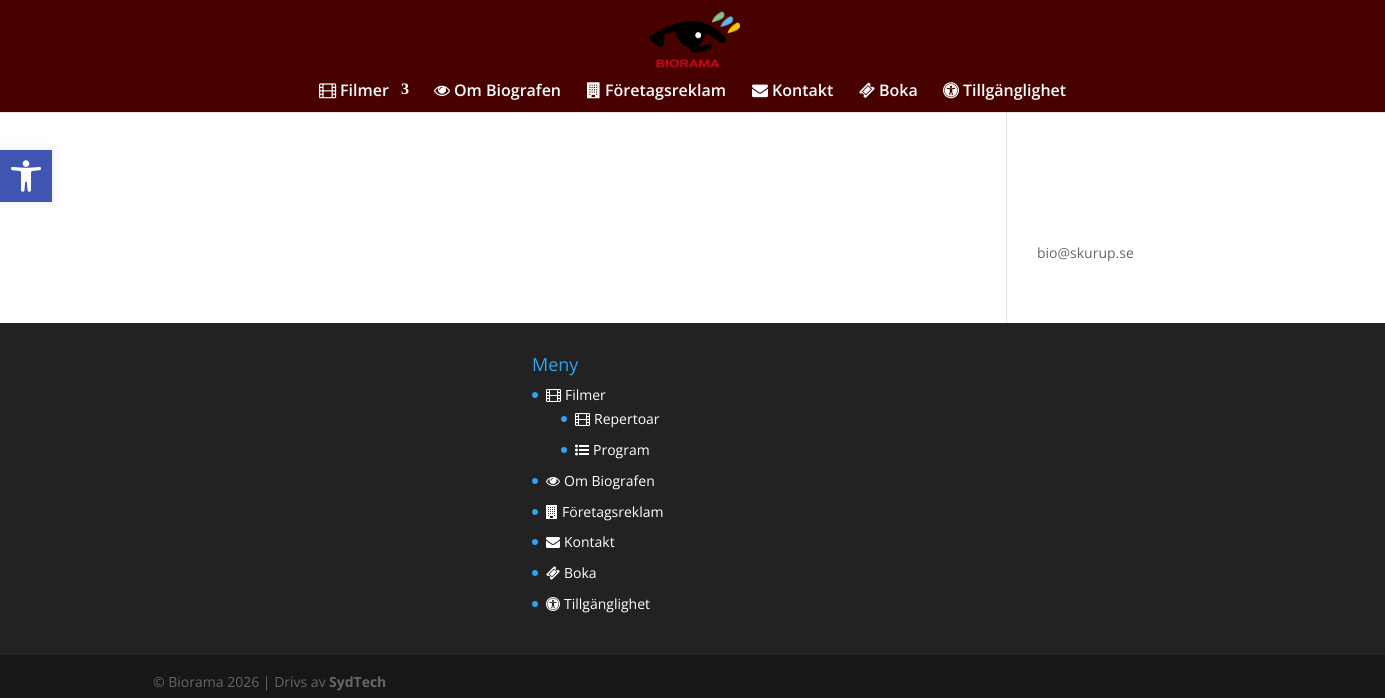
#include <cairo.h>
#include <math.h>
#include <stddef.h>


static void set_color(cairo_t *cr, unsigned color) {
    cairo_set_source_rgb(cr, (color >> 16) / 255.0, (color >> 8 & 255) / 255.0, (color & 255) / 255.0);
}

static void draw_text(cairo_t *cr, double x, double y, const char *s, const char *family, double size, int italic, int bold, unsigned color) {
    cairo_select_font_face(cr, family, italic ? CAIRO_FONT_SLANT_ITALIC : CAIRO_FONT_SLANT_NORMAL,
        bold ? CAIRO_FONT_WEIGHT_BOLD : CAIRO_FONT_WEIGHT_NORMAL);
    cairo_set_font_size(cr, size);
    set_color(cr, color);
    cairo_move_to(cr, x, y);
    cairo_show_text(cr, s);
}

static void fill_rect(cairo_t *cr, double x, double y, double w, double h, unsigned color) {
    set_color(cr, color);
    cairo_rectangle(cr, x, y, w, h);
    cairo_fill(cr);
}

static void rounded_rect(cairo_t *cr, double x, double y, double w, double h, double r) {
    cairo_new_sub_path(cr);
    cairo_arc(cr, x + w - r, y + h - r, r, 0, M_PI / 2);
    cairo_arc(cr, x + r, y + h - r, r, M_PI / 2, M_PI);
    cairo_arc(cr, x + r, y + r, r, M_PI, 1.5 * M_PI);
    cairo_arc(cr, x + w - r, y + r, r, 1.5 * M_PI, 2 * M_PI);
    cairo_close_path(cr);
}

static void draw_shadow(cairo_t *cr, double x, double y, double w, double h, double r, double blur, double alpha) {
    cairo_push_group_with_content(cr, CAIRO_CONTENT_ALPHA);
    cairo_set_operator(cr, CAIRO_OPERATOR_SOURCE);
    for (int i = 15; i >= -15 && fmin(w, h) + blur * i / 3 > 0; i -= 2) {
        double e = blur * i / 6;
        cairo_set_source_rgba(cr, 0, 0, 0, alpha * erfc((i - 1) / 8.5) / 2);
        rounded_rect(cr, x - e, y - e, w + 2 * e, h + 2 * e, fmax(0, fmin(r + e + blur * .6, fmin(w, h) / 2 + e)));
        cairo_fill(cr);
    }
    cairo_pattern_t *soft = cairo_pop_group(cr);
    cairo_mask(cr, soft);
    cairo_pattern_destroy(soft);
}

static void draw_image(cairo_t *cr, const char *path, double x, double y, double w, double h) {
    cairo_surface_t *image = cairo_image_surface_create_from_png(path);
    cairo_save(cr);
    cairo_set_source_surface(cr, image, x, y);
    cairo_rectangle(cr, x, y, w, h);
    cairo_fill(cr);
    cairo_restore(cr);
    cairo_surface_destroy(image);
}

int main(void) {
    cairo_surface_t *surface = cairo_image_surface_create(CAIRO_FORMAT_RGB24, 1385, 698);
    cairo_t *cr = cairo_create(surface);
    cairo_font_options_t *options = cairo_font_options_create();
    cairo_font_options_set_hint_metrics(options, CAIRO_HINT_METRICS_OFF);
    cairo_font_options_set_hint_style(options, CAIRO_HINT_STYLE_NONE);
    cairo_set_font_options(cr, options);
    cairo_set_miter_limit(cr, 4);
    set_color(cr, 0xFFFFFF);
    cairo_paint(cr);
    set_color(cr, 0x000000);
    draw_shadow(cr, 0, 150, 52, 52, 0, 5, 0.1);
    fill_rect(cr, 0, 150, 52, 52, 0x4054B2);
    draw_image(cr, "assets/img1.png", 11, 160, 30, 32);
    fill_rect(cr, 0, 0, 1385, 112, 0x470200);
    draw_image(cr, "assets/img2.png", 649, 11, 91, 57);
    draw_image(cr, "assets/img3.png", 319, 83, 18, 16);
    draw_text(cr, 340, 96, "Filmer", "Open Sans SemiBold", 16, 0, 0, 0xFFFFFF);
    draw_text(cr, 401, 94, "3", "Liberation Serif", 16, 0, 1, 0xFFFFFF);
    draw_image(cr, "assets/img4.png", 434, 85, 16, 11);
    draw_text(cr, 454, 96, "Om Biografen", "Open Sans SemiBold", 16, 0, 0, 0xFFFFFF);
    draw_image(cr, "assets/img5.png", 587, 82, 13, 17);
    draw_text(cr, 605, 96, "Företagsreklam", "Open Sans SemiBold", 16, 0, 0, 0xFFFFFF);
    draw_image(cr, "assets/img6.png", 752, 84, 16, 14);
    draw_text(cr, 772, 96, "Kontakt", "Open Sans SemiBold", 16, 0, 0, 0xFFFFFF);
    draw_image(cr, "assets/img7.png", 859, 82, 16, 16);
    draw_text(cr, 879, 96, "Boka", "Open Sans SemiBold", 16, 0, 0, 0xFFFFFF);
    draw_image(cr, "assets/img8.png", 943, 82, 16, 17);
    draw_text(cr, 963, 96, "Tillgänglighet", "Open Sans SemiBold", 16, 0, 0, 0xFFFFFF);
    fill_rect(cr, 0, 112, 1385, 1, 0xE6E6E6);
    fill_rect(cr, 1006, 113, 1, 210, 0xE2E2E2);
    fill_rect(cr, 1006, 112, 1, 1, 0xCBCBCB);
    draw_text(cr, 1037, 258, "bio@skurup.se", "Open Sans", 14, 0, 0, 0x666666);
    fill_rect(cr, 0, 323, 1385, 332, 0x222222);
    draw_text(cr, 532, 371, "Meny", "Open Sans", 18, 0, 0, 0x2EA3F2);
    cairo_new_path(cr);
    cairo_arc(cr, 535, 395, 3, 0, 2 * M_PI);
    cairo_fill(cr);
    draw_image(cr, "assets/img9.png", 546, 389, 15, 13);
    draw_text(cr, 565, 400, "Filmer", "Open Sans", 14, 0, 0, 0xFFFFFF);
    set_color(cr, 0x2EA3F2);
    cairo_new_path(cr);
    cairo_arc(cr, 564, 419, 3, 0, 2 * M_PI);
    cairo_fill(cr);
    draw_image(cr, "assets/img9.png", 575, 413, 15, 13);
    draw_text(cr, 594, 424, "Repertoar", "Open Sans", 14, 0, 0, 0xFFFFFF);
    set_color(cr, 0x2EA3F2);
    cairo_new_path(cr);
    cairo_arc(cr, 564, 450, 3, 0, 2 * M_PI);
    cairo_fill(cr);
    draw_image(cr, "assets/img10.png", 575, 444, 14, 12);
    draw_text(cr, 593, 455, "Program", "Open Sans", 14, 0, 0, 0xFFFFFF);
    set_color(cr, 0x2EA3F2);
    cairo_new_path(cr);
    cairo_arc(cr, 535, 481, 3, 0, 2 * M_PI);
    cairo_fill(cr);
    draw_image(cr, "assets/img11.png", 546, 477, 14, 9);
    draw_text(cr, 564, 486, "Om Biografen", "Open Sans", 14, 0, 0, 0xFFFFFF);
    set_color(cr, 0x2EA3F2);
    cairo_new_path(cr);
    cairo_arc(cr, 535, 512, 3, 0, 2 * M_PI);
    cairo_fill(cr);
    draw_image(cr, "assets/img12.png", 546, 505, 11, 14);
    draw_text(cr, 562, 517, "Företagsreklam", "Open Sans", 14, 0, 0, 0xFFFFFF);
    set_color(cr, 0x2EA3F2);
    cairo_new_path(cr);
    cairo_arc(cr, 535, 542, 3, 0, 2 * M_PI);
    cairo_fill(cr);
    draw_image(cr, "assets/img13.png", 546, 537, 14, 11);
    draw_text(cr, 564, 547, "Kontakt", "Open Sans", 14, 0, 0, 0xFFFFFF);
    set_color(cr, 0x2EA3F2);
    cairo_new_path(cr);
    cairo_arc(cr, 535, 573, 3, 0, 2 * M_PI);
    cairo_fill(cr);
    draw_image(cr, "assets/img14.png", 546, 566, 14, 14);
    draw_text(cr, 564, 578, "Boka", "Open Sans", 14, 0, 0, 0xFFFFFF);
    set_color(cr, 0x2EA3F2);
    cairo_new_path(cr);
    cairo_arc(cr, 535, 604, 3, 0, 2 * M_PI);
    cairo_fill(cr);
    draw_image(cr, "assets/img15.png", 546, 597, 14, 14);
    draw_text(cr, 564, 609, "Tillgänglighet", "Open Sans", 14, 0, 0, 0xFFFFFF);
    fill_rect(cr, 0, 655, 1385, 43, 0x171717);
    draw_text(cr, 153, 687, "© Biorama 2026 | Drivs av", "Open Sans", 14, 0, 0, 0x666666);
    draw_text(cr, 329, 687, "SydTech", "Open Sans", 14, 0, 1, 0x666666);
    cairo_surface_write_to_png(surface, "output.png");
    cairo_font_options_destroy(options);
    cairo_destroy(cr);
    cairo_surface_destroy(surface);
    return 0;
}
